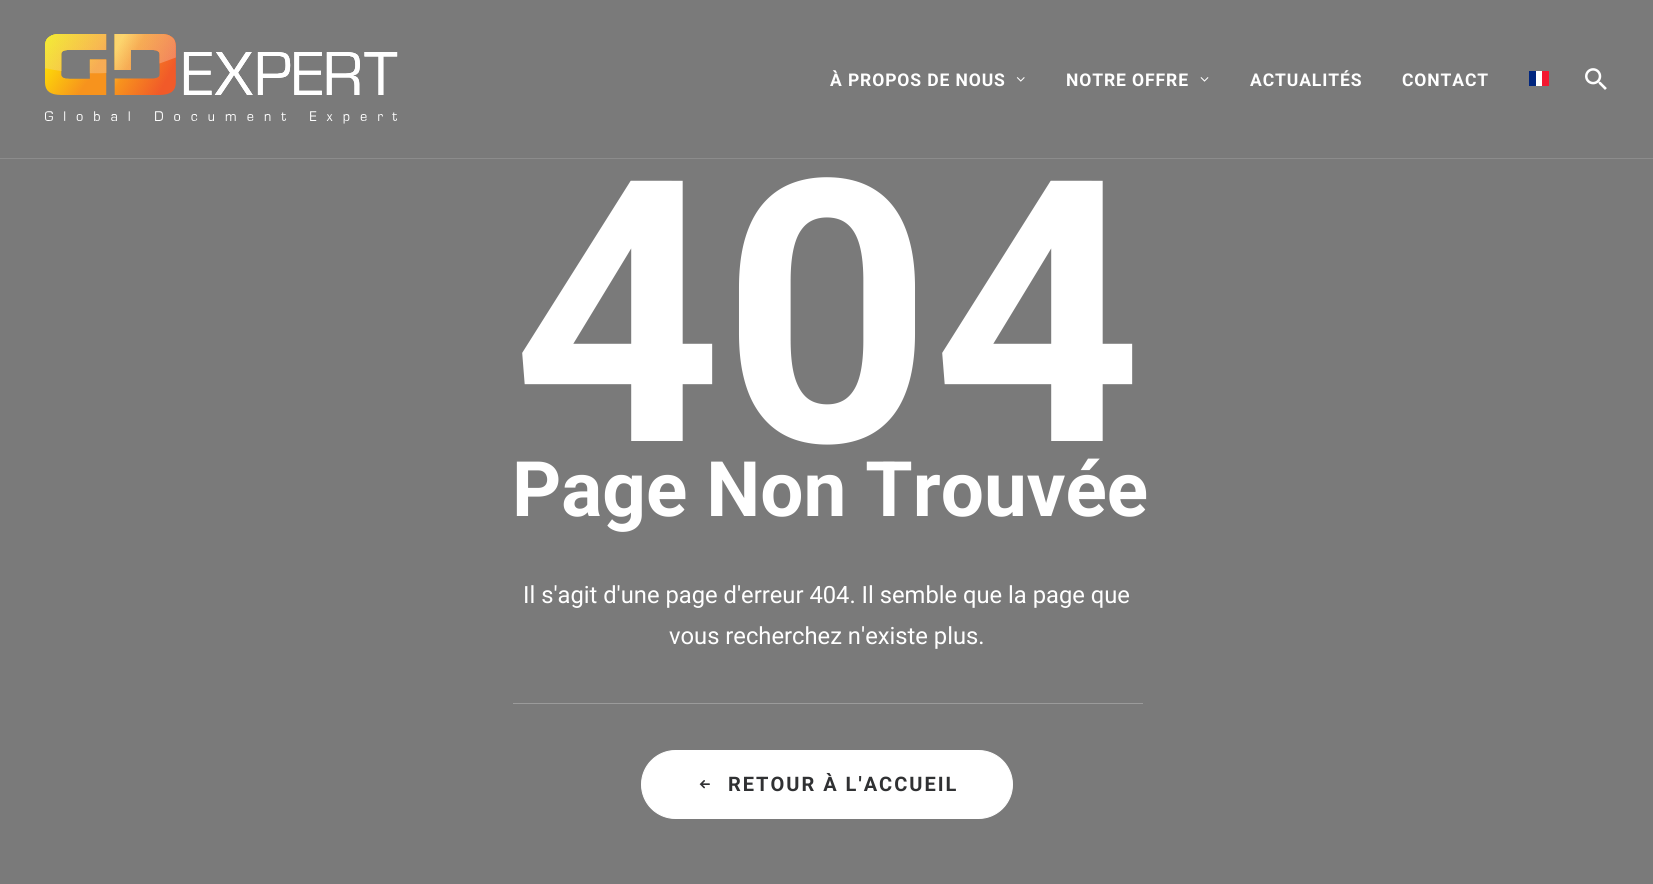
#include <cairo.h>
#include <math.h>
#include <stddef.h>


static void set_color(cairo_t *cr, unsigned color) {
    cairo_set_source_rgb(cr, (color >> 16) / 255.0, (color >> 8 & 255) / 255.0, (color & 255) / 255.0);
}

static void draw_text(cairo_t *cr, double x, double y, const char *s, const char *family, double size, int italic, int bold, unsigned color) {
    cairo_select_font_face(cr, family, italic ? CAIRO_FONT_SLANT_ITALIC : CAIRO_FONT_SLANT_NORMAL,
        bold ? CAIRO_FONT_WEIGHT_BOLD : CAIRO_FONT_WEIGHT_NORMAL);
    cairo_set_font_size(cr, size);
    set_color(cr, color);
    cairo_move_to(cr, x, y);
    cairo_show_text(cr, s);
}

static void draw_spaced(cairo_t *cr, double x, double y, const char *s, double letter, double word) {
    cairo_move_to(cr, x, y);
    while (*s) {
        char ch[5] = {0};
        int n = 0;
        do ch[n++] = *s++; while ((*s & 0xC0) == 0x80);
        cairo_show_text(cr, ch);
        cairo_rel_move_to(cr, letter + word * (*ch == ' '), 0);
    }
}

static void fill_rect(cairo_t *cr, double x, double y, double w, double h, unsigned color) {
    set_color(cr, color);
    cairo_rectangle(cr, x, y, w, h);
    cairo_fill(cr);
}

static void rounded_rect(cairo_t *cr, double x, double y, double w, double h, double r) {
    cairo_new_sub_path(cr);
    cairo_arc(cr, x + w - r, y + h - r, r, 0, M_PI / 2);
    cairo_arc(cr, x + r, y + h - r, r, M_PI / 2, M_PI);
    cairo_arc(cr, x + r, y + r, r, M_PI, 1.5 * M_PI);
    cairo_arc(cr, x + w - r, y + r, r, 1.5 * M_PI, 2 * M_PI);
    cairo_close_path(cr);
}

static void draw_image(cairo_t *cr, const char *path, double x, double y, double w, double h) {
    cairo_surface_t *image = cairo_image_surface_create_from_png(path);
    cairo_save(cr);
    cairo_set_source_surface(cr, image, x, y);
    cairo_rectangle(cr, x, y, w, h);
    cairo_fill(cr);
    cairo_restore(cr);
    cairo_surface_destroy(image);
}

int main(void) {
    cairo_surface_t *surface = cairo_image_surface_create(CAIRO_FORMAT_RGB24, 1653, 884);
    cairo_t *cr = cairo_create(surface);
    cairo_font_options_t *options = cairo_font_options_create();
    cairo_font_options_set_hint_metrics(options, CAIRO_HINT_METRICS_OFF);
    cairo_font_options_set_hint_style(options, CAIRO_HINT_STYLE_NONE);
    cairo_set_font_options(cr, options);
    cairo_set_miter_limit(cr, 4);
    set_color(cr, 0x7A7A7A);
    cairo_paint(cr);
    fill_rect(cr, 0, 158, 1653, 1, 0x8C8C8C);
    draw_image(cr, "assets/img1.png", 45, 34, 353, 90);
    cairo_select_font_face(cr, "Roboto", CAIRO_FONT_SLANT_NORMAL, CAIRO_FONT_WEIGHT_BOLD);
    cairo_set_font_size(cr, 17.5);
    set_color(cr, 0xFFFFFF);
    draw_spaced(cr, 830, 86, "À PROPOS DE NOUS", 0.9, 0);
    draw_image(cr, "assets/img2.png", 1016, 77, 9, 5);
    draw_spaced(cr, 1066, 86, "NOTRE OFFRE", 0.9, 0);
    draw_image(cr, "assets/img3.png", 1200, 77, 9, 5);
    draw_spaced(cr, 1250, 86, "ACTUALITÉS", 0.9, 0);
    draw_spaced(cr, 1402, 86, "CONTACT", 0.9, 0);
    fill_rect(cr, 1536, 71, 6, 15, 0xFFFFFF);
    fill_rect(cr, 1529, 71, 7, 15, 0x00267F);
    fill_rect(cr, 1542, 71, 7, 15, 0xF31830);
    draw_image(cr, "assets/img4.png", 1585, 68, 22, 22);
    draw_text(cr, 512, 441, "404", "Roboto", 366, 0, 1, 0xFFFFFF);
    draw_text(cr, 512, 516, "Page Non Trouvée", "Roboto", 76.5, 0, 1, 0xFFFFFF);
    draw_text(cr, 523, 603, "Il s'agit d'une page d'erreur 404. Il semble que la page que", "Roboto", 23.75, 0, 0, 0xFFFFFF);
    draw_text(cr, 669, 644, "vous recherchez n'existe plus.", "Roboto", 23.75, 0, 0, 0xFFFFFF);
    fill_rect(cr, 513, 703, 630, 1, 0x9B9B9B);
    set_color(cr, 0xFFFFFF);
    rounded_rect(cr, 641.5, 750.5, 371, 68, 34);
    cairo_fill_preserve(cr);
    cairo_set_line_width(cr, 1);
    cairo_stroke(cr);
    draw_image(cr, "assets/img5.png", 699, 780, 11, 9);
    cairo_select_font_face(cr, "Roboto", CAIRO_FONT_SLANT_NORMAL, CAIRO_FONT_WEIGHT_BOLD);
    cairo_set_font_size(cr, 20);
    set_color(cr, 0x303133);
    draw_spaced(cr, 728, 791, "RETOUR À L'ACCUEIL", 2, 0);
    cairo_surface_write_to_png(surface, "output.png");
    cairo_font_options_destroy(options);
    cairo_destroy(cr);
    cairo_surface_destroy(surface);
    return 0;
}
